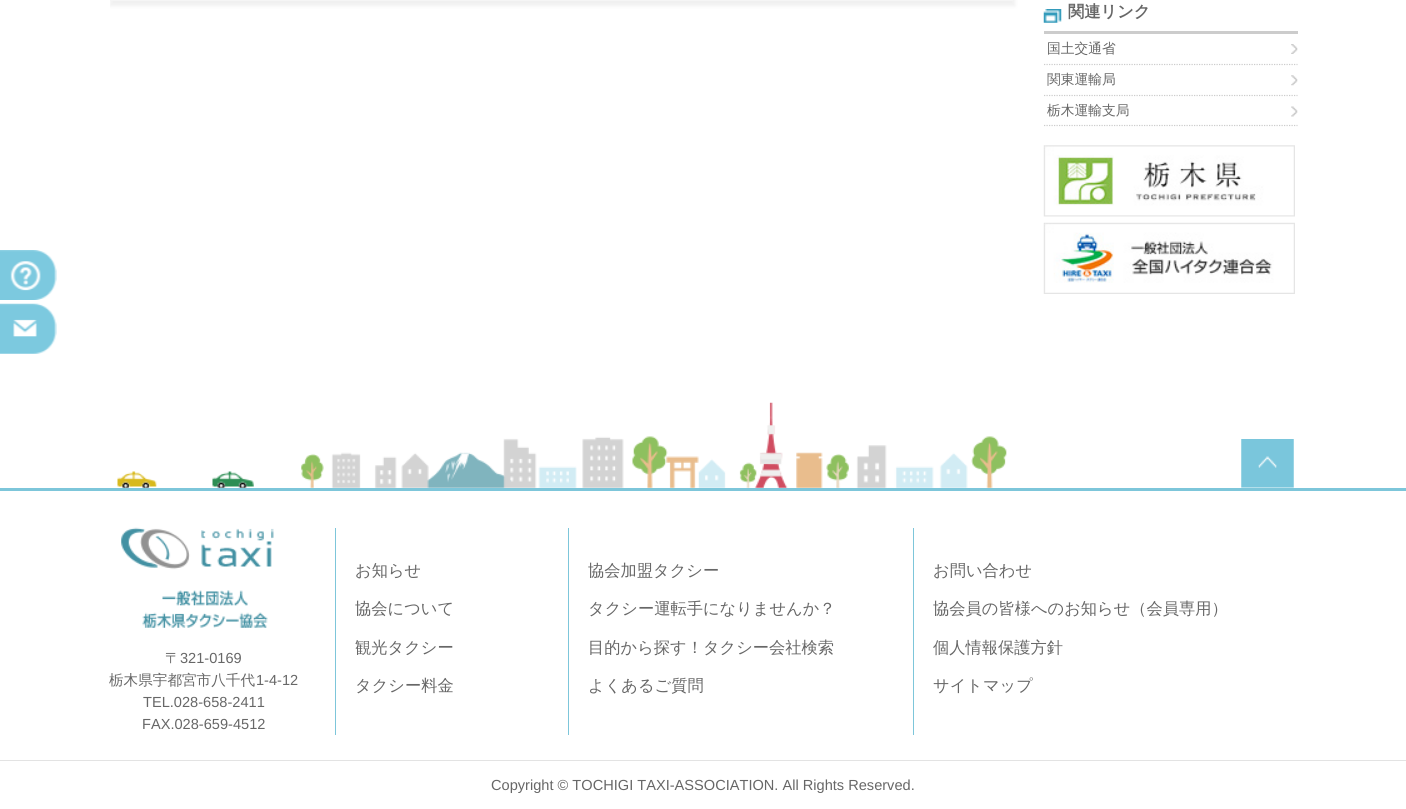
#include <cairo.h>
#include <math.h>
#include <stddef.h>


static void set_color(cairo_t *cr, unsigned color) {
    cairo_set_source_rgb(cr, (color >> 16) / 255.0, (color >> 8 & 255) / 255.0, (color & 255) / 255.0);
}

static void draw_text(cairo_t *cr, double x, double y, const char *s, const char *family, double size, int italic, int bold, unsigned color) {
    cairo_select_font_face(cr, family, italic ? CAIRO_FONT_SLANT_ITALIC : CAIRO_FONT_SLANT_NORMAL,
        bold ? CAIRO_FONT_WEIGHT_BOLD : CAIRO_FONT_WEIGHT_NORMAL);
    cairo_set_font_size(cr, size);
    set_color(cr, color);
    cairo_move_to(cr, x, y);
    cairo_show_text(cr, s);
}

static void fill_rect(cairo_t *cr, double x, double y, double w, double h, unsigned color) {
    set_color(cr, color);
    cairo_rectangle(cr, x, y, w, h);
    cairo_fill(cr);
}

static void rounded_rect(cairo_t *cr, double x, double y, double w, double h, double r) {
    cairo_new_sub_path(cr);
    cairo_arc(cr, x + w - r, y + h - r, r, 0, M_PI / 2);
    cairo_arc(cr, x + r, y + h - r, r, M_PI / 2, M_PI);
    cairo_arc(cr, x + r, y + r, r, M_PI, 1.5 * M_PI);
    cairo_arc(cr, x + w - r, y + r, r, 1.5 * M_PI, 2 * M_PI);
    cairo_close_path(cr);
}

static void draw_shadow(cairo_t *cr, double x, double y, double w, double h, double r, double blur, double alpha) {
    cairo_push_group_with_content(cr, CAIRO_CONTENT_ALPHA);
    cairo_set_operator(cr, CAIRO_OPERATOR_SOURCE);
    for (int i = 15; i >= -15 && fmin(w, h) + blur * i / 3 > 0; i -= 2) {
        double e = blur * i / 6;
        cairo_set_source_rgba(cr, 0, 0, 0, alpha * erfc((i - 1) / 8.5) / 2);
        rounded_rect(cr, x - e, y - e, w + 2 * e, h + 2 * e, fmax(0, fmin(r + e + blur * .6, fmin(w, h) / 2 + e)));
        cairo_fill(cr);
    }
    cairo_pattern_t *soft = cairo_pop_group(cr);
    cairo_mask(cr, soft);
    cairo_pattern_destroy(soft);
}

static void draw_image(cairo_t *cr, const char *path, double x, double y, double w, double h) {
    cairo_surface_t *image = cairo_image_surface_create_from_png(path);
    cairo_save(cr);
    cairo_set_source_surface(cr, image, x, y);
    cairo_rectangle(cr, x, y, w, h);
    cairo_fill(cr);
    cairo_restore(cr);
    cairo_surface_destroy(image);
}

int main(void) {
    cairo_surface_t *surface = cairo_image_surface_create(CAIRO_FORMAT_RGB24, 1406, 809);
    cairo_t *cr = cairo_create(surface);
    cairo_font_options_t *options = cairo_font_options_create();
    cairo_font_options_set_hint_metrics(options, CAIRO_HINT_METRICS_OFF);
    cairo_font_options_set_hint_style(options, CAIRO_HINT_STYLE_NONE);
    cairo_set_font_options(cr, options);
    cairo_set_miter_limit(cr, 4);
    set_color(cr, 0xFFFFFF);
    cairo_paint(cr);
    cairo_save(cr);
    cairo_rectangle(cr, 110, 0, 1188, 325);
    cairo_clip(cr);
    set_color(cr, 0xCCCCCC);
    draw_shadow(cr, 110, -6, 905, 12, 0, 2, 0.3);
    cairo_restore(cr);
    cairo_rectangle(cr, 110.5, -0.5, 902, 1);
    set_color(cr, 0xF5F5F5);
    cairo_set_line_width(cr, 1);
    cairo_stroke(cr);
    draw_image(cr, "assets/img1.png", 1043, 9, 19, 14);
    fill_rect(cr, 1044, 31, 254, 3, 0xCCCCCC);
    draw_text(cr, 1068, 17, "関連リンク", "WenQuanYi Zen Hei", 16.25, 0, 1, 0x676767);
    draw_image(cr, "assets/img2.png", 1291, 44, 7, 10);
    cairo_new_path(cr);
    cairo_move_to(cr, 1044, 64.5);
    cairo_line_to(cr, 1297.5, 64.5);
    set_color(cr, 0xCCCCCC);
    cairo_set_line_width(cr, 1.2);
    cairo_set_dash(cr, (double[]){1.25, 1.25}, 2, 0);
    cairo_stroke(cr);
    draw_text(cr, 1047, 53, "国土交通省", "WenQuanYi Zen Hei Medium", 13.75, 0, 0, 0x676767);
    draw_image(cr, "assets/img3.png", 1291, 75, 7, 11);
    cairo_new_path(cr);
    cairo_move_to(cr, 1044, 95.5);
    cairo_line_to(cr, 1297.5, 95.5);
    set_color(cr, 0xCCCCCC);
    cairo_stroke(cr);
    draw_text(cr, 1047, 84, "関東運輸局", "WenQuanYi Zen Hei Medium", 13.75, 0, 0, 0x676767);
    draw_image(cr, "assets/img4.png", 1291, 106, 7, 11);
    cairo_new_path(cr);
    cairo_move_to(cr, 1044, 125.5);
    cairo_line_to(cr, 1297.5, 125.5);
    set_color(cr, 0xCCCCCC);
    cairo_stroke(cr);
    draw_text(cr, 1047, 115, "栃木運輸支局", "WenQuanYi Zen Hei Medium", 13.75, 0, 0, 0x676767);
    draw_image(cr, "assets/img5.png", 1043, 145, 252, 72);
    draw_image(cr, "assets/img6.png", 1043, 222, 252, 72);
    draw_image(cr, "assets/img7.png", 0, 250, 57, 50);
    draw_image(cr, "assets/img8.png", 0, 303, 57, 51);
    draw_image(cr, "assets/img9.png", 301, 402, 706, 86);
    fill_rect(cr, 0, 488, 1406, 3, 0x7DC6DA);
    draw_image(cr, "assets/img10.png", 117, 471, 40, 17);
    draw_image(cr, "assets/img11.png", 212, 471, 42, 17);
    draw_image(cr, "assets/img12.png", 1241, 439, 53, 49);
    fill_rect(cr, 335, 528, 1, 207, 0x7DC6DA);
    draw_image(cr, "assets/img13.png", 121, 527, 153, 101);
    draw_text(cr, 165, 663, "〒", "WenQuanYi Zen Hei Medium", 14.6, 0, 0, 0x676767);
    draw_text(cr, 180, 663, "321-0169", "Liberation Sans", 14.6, 0, 0, 0x676767);
    draw_text(cr, 109, 685, "栃木県宇都宮市八千代", "WenQuanYi Zen Hei Medium", 14.6, 0, 0, 0x676767);
    draw_text(cr, 256, 685, "1-4-12", "Liberation Sans", 14.6, 0, 0, 0x676767);
    draw_text(cr, 143, 707, "TEL.028-658-2411", "Liberation Sans", 14.6, 0, 0, 0x676767);
    draw_text(cr, 142, 729, "FAX.028-659-4512", "Liberation Sans", 14.6, 0, 0, 0x676767);
    fill_rect(cr, 568, 528, 1, 207, 0x7DC6DA);
    draw_text(cr, 355, 576, "お知らせ", "WenQuanYi Zen Hei Medium", 16.25, 0, 0, 0x676767);
    draw_text(cr, 355, 614, "協会について", "WenQuanYi Zen Hei Medium", 16.25, 0, 0, 0x676767);
    draw_text(cr, 355, 653, "観光タクシー", "WenQuanYi Zen Hei Medium", 16.25, 0, 0, 0x676767);
    draw_text(cr, 355, 691, "タクシー料金", "WenQuanYi Zen Hei Medium", 16.25, 0, 0, 0x676767);
    fill_rect(cr, 913, 528, 1, 207, 0x7DC6DA);
    draw_text(cr, 588, 576, "協会加盟タクシー", "WenQuanYi Zen Hei Medium", 16.25, 0, 0, 0x676767);
    draw_text(cr, 588, 614, "タクシー運転手になりませんか？", "WenQuanYi Zen Hei Medium", 16.25, 0, 0, 0x676767);
    draw_text(cr, 588, 653, "目的から探す！タクシー会社検索", "WenQuanYi Zen Hei Medium", 16.25, 0, 0, 0x676767);
    draw_text(cr, 588, 691, "よくあるご質問", "WenQuanYi Zen Hei Medium", 16.25, 0, 0, 0x676767);
    draw_text(cr, 933, 576, "お問い合わせ", "WenQuanYi Zen Hei Medium", 16.25, 0, 0, 0x676767);
    draw_text(cr, 933, 614, "協会員の皆様へのお知らせ（会員専用）", "WenQuanYi Zen Hei Medium", 16.25, 0, 0, 0x676767);
    draw_text(cr, 933, 653, "個人情報保護方針", "WenQuanYi Zen Hei Medium", 16.25, 0, 0, 0x676767);
    draw_text(cr, 933, 691, "サイトマップ", "WenQuanYi Zen Hei Medium", 16.25, 0, 0, 0x676767);
    fill_rect(cr, 0, 760, 1406, 1, 0xE3E3E3);
    draw_text(cr, 491, 790, "Copyright © TOCHIGI TAXI-ASSOCIATION. All Rights Reserved.", "Liberation Sans", 14.6, 0, 0, 0x676767);
    cairo_surface_write_to_png(surface, "output.png");
    cairo_font_options_destroy(options);
    cairo_destroy(cr);
    cairo_surface_destroy(surface);
    return 0;
}
